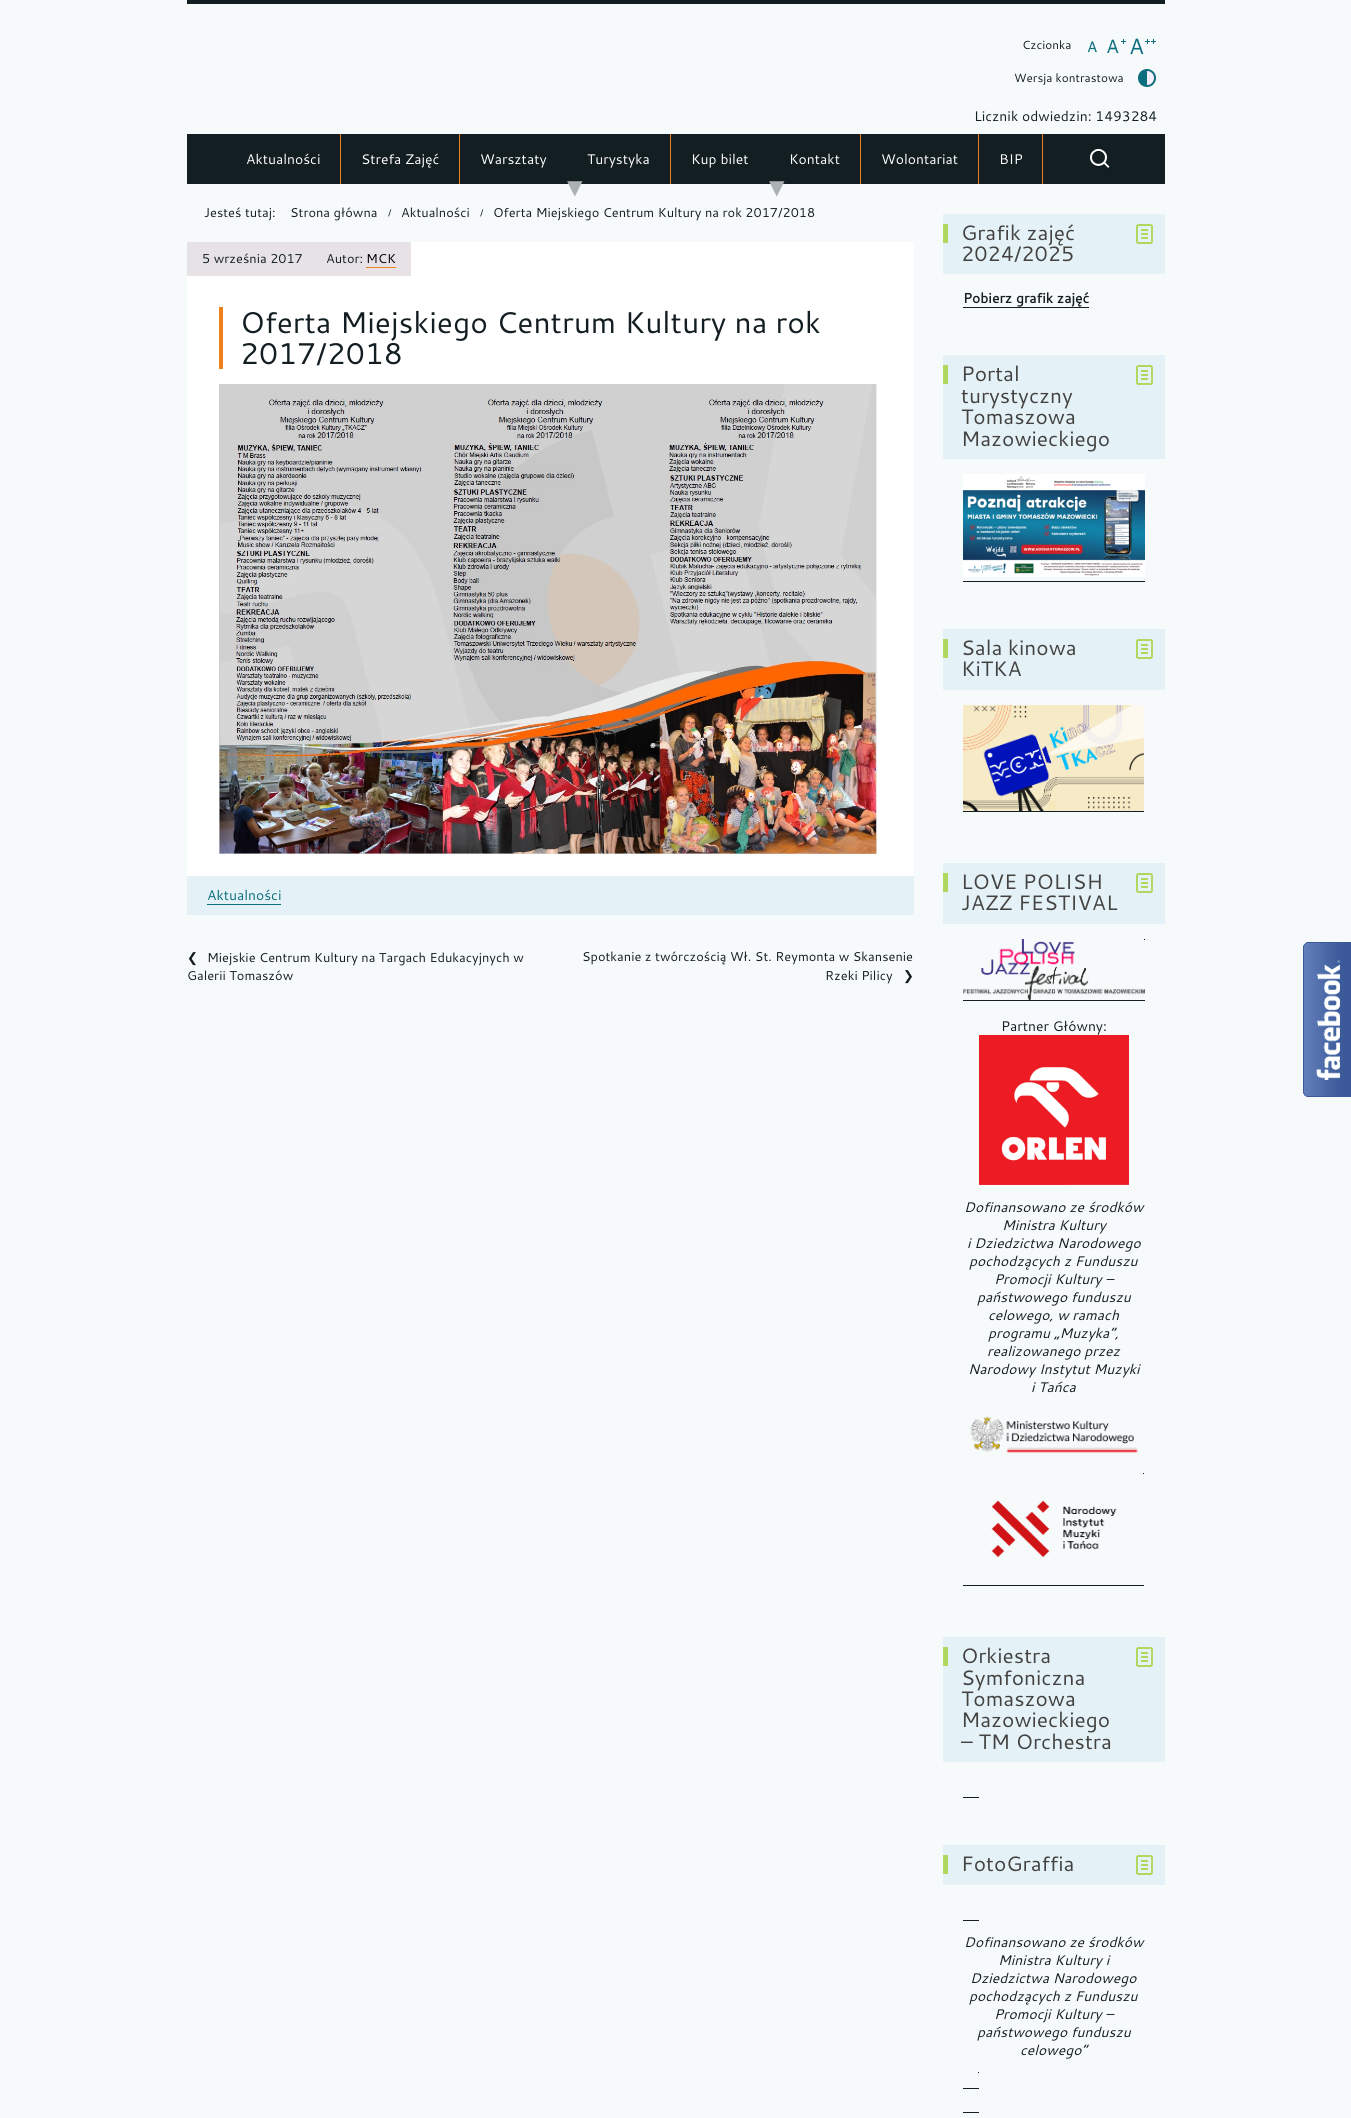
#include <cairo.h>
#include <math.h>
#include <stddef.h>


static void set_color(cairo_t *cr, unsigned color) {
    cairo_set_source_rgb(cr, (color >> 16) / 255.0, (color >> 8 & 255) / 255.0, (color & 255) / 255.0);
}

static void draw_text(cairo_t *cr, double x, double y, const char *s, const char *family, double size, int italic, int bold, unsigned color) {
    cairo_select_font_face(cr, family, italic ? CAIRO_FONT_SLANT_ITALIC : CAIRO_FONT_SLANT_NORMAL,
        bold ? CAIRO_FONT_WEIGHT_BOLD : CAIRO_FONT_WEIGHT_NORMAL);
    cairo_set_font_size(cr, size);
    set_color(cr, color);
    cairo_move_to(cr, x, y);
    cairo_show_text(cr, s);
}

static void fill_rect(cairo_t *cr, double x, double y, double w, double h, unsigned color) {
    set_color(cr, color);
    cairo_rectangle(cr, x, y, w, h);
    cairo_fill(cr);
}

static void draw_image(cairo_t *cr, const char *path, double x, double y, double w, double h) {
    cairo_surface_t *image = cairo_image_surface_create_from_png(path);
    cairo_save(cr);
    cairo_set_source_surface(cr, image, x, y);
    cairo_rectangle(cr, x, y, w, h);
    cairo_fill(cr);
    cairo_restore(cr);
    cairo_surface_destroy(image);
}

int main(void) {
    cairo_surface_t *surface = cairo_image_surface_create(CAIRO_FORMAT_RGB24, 1351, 2118);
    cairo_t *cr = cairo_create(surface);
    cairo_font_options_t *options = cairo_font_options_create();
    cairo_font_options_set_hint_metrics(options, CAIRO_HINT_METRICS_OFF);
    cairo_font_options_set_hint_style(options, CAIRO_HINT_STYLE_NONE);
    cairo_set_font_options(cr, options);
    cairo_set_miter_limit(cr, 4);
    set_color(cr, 0xF7FAFB);
    cairo_paint(cr);
    fill_rect(cr, 187, 0, 978, 4, 0x131E22);
    draw_text(cr, 1022, 49, "Czcionka", "Cantarell", 11, 0, 0, 0x131E22);
    draw_image(cr, "assets/img1.png", 1087, 41, 10, 12);
    draw_image(cr, "assets/img2.png", 1107, 39, 19, 15);
    draw_image(cr, "assets/img3.png", 1130, 38, 26, 17);
    draw_text(cr, 1014, 82, "Wersja kontrastowa", "Cantarell", 11, 0, 0, 0x131E22);
    draw_image(cr, "assets/img4.png", 1138, 69, 18, 18);
    draw_text(cr, 974, 121, "Licznik odwiedzin: 1493284", "Cantarell", 13, 0, 0, 0x131E22);
    fill_rect(cr, 187, 134, 978, 50, 0x131E22);
    fill_rect(cr, 340, 134, 1, 50, 0xEF811D);
    draw_text(cr, 246, 164, "Aktualności", "Cantarell", 13, 0, 0, 0xFFFFFF);
    fill_rect(cr, 459, 134, 1, 50, 0xEF811D);
    draw_text(cr, 361, 164, "Strefa Zajęć", "Cantarell", 13, 0, 0, 0xFFFFFF);
    draw_text(cr, 480, 164, "Warsztaty", "Cantarell", 13, 0, 0, 0xFFFFFF);
    fill_rect(cr, 670, 134, 1, 50, 0xEF811D);
    draw_text(cr, 587, 164, "Turystyka", "Cantarell", 13, 0, 0, 0xFFFFFF);
    draw_text(cr, 567, 197, "▾", "DejaVu Sans", 31, 0, 0, 0xACB1B3);
    draw_text(cr, 691, 164, "Kup bilet", "Cantarell", 13, 0, 0, 0xFFFFFF);
    fill_rect(cr, 860, 134, 1, 50, 0xEF811D);
    draw_text(cr, 789, 164, "Kontakt", "Cantarell", 13, 0, 0, 0xFFFFFF);
    draw_text(cr, 769, 197, "▾", "DejaVu Sans", 31, 0, 0, 0xACB1B3);
    fill_rect(cr, 978, 134, 1, 50, 0xEF811D);
    draw_text(cr, 881, 164, "Wolontariat", "Cantarell", 13, 0, 0, 0xFFFFFF);
    fill_rect(cr, 1042, 134, 1, 50, 0xEF811D);
    draw_text(cr, 999, 164, "BIP", "Cantarell", 13, 0, 0, 0xFFFFFF);
    draw_image(cr, "assets/img5.png", 1090, 149, 20, 20);
    draw_text(cr, 204, 217, "Jesteś tutaj:", "Cantarell", 12, 0, 0, 0x131E22);
    draw_text(cr, 290, 217, "Strona główna", "Cantarell", 12, 0, 0, 0x131E22);
    draw_text(cr, 388, 216, "/", "Cantarell", 9, 0, 0, 0x131E22);
    draw_text(cr, 401, 217, "Aktualności", "Cantarell", 12, 0, 0, 0x131E22);
    draw_text(cr, 480, 216, "/", "Cantarell", 9, 0, 0, 0x131E22);
    draw_text(cr, 493, 217, "Oferta Miejskiego Centrum Kultury na rok 2017/2018", "Cantarell", 12, 0, 0, 0x131E22);
    fill_rect(cr, 187, 242, 727, 634, 0xFFFFFF);
    fill_rect(cr, 187, 242, 224, 34, 0xE6E2E6);
    draw_text(cr, 202, 263, "5 września 2017", "Cantarell", 12, 0, 0, 0x131E22);
    draw_text(cr, 326, 263, "Autor:", "Cantarell", 12, 0, 0, 0x131E22);
    draw_text(cr, 366, 263, "MCK", "Cantarell", 12, 0, 0, 0x000000);
    fill_rect(cr, 366, 267, 30, 1, 0xEF811D);
    fill_rect(cr, 219, 307, 4, 62, 0xEF811D);
    draw_text(cr, 240, 333, "Oferta Miejskiego Centrum Kultury na rok", "Cantarell", 28, 0, 0, 0x131E22);
    draw_text(cr, 240, 364, "2017/2018", "Cantarell", 28, 0, 0, 0x131E22);
    draw_image(cr, "assets/img6.png", 219, 384, 658, 470);
    fill_rect(cr, 187, 876, 727, 39, 0xE4F1F6);
    draw_text(cr, 207, 900, "Aktualności", "Cantarell", 13, 0, 0, 0x0D6E7D);
    fill_rect(cr, 207, 904, 74, 1, 0x0D6E7D);
    draw_text(cr, 187, 962, "❮", "DejaVu Sans", 13, 0, 0, 0x131E22);
    draw_text(cr, 207, 962, "Miejskie Centrum Kultury na Targach Edukacyjnych w", "Cantarell", 12, 0, 0, 0x131E22);
    draw_text(cr, 187, 980, "Galerii Tomaszów", "Cantarell", 12, 0, 0, 0x131E22);
    draw_text(cr, 582, 961, "Spotkanie z twórczością Wł. St. Reymonta w Skansenie", "Cantarell", 12, 0, 0, 0x131E22);
    draw_text(cr, 825, 980, "Rzeki Pilicy", "Cantarell", 12, 0, 0, 0x131E22);
    draw_text(cr, 903, 980, "❯", "DejaVu Sans", 13, 0, 0, 0x131E22);
    fill_rect(cr, 943, 214, 222, 60, 0xE4F1F6);
    fill_rect(cr, 943, 224, 5, 19, 0xB1D85E);
    draw_text(cr, 961, 240, "Grafik zajęć", "Cantarell", 19.5, 0, 0, 0x434241);
    draw_image(cr, "assets/img7.png", 1136, 224, 17, 20);
    draw_text(cr, 961, 261, "2024/2025", "Cantarell", 19.5, 0, 0, 0x434241);
    draw_text(cr, 963, 303, "Pobierz grafik zajęć", "Cantarell", 13, 0, 1, 0x131E22);
    fill_rect(cr, 963, 307, 126, 1, 0x131E22);
    fill_rect(cr, 943, 355, 222, 104, 0xE4F1F6);
    fill_rect(cr, 943, 365, 5, 19, 0xB1D85E);
    draw_text(cr, 961, 381, "Portal", "Cantarell", 19.5, 0, 0, 0x434241);
    draw_image(cr, "assets/img7.png", 1136, 365, 17, 20);
    draw_text(cr, 961, 403, "turystyczny", "Cantarell", 19.5, 0, 0, 0x434241);
    draw_text(cr, 961, 424, "Tomaszowa", "Cantarell", 19.5, 0, 0, 0x434241);
    draw_text(cr, 961, 446, "Mazowieckiego", "Cantarell", 19.5, 0, 0, 0x434241);
    draw_image(cr, "assets/img8.png", 963, 474, 182, 103);
    fill_rect(cr, 963, 581, 182, 1, 0x131E22);
    fill_rect(cr, 943, 629, 222, 61, 0xE4F1F6);
    fill_rect(cr, 943, 639, 5, 19, 0xB1D85E);
    draw_text(cr, 961, 655, "Sala kinowa", "Cantarell", 19.5, 0, 0, 0x434241);
    draw_image(cr, "assets/img7.png", 1136, 639, 17, 20);
    draw_text(cr, 961, 676, "KiTKA", "Cantarell", 19.5, 0, 0, 0x434241);
    draw_image(cr, "assets/img9.png", 963, 705, 181, 106);
    fill_rect(cr, 963, 811, 181, 1, 0x131E22);
    fill_rect(cr, 943, 863, 222, 61, 0xE4F1F6);
    fill_rect(cr, 943, 873, 5, 19, 0xB1D85E);
    draw_text(cr, 961, 889, "LOVE POLISH", "Cantarell", 19.5, 0, 0, 0x434241);
    draw_image(cr, "assets/img7.png", 1136, 873, 17, 20);
    draw_text(cr, 961, 910, "JAZZ FESTIVAL", "Cantarell", 19.5, 0, 0, 0x434241);
    fill_rect(cr, 1144, 939, 1, 1, 0x131E22);
    draw_image(cr, "assets/img10.png", 963, 939, 182, 61);
    fill_rect(cr, 963, 1000, 182, 1, 0x131E22);
    draw_text(cr, 1001, 1031, "Partner Główny:", "Cantarell", 13, 0, 0, 0x131E22);
    draw_image(cr, "assets/img11.png", 979, 1035, 150, 150);
    draw_text(cr, 964, 1212, "Dofinansowano ze środków", "Cantarell", 13, 1, 0, 0x131E22);
    draw_text(cr, 1002, 1230, "Ministra Kultury", "Cantarell", 13, 1, 0, 0x131E22);
    draw_text(cr, 967, 1248, "i Dziedzictwa Narodowego", "Cantarell", 13, 1, 0, 0x131E22);
    draw_text(cr, 969, 1266, "pochodzących z Funduszu", "Cantarell", 13, 1, 0, 0x131E22);
    draw_text(cr, 994, 1284, "Promocji Kultury –", "Cantarell", 13, 1, 0, 0x131E22);
    draw_text(cr, 977, 1302, "państwowego funduszu", "Cantarell", 13, 1, 0, 0x131E22);
    draw_text(cr, 988, 1320, "celowego, w ramach", "Cantarell", 13, 1, 0, 0x131E22);
    draw_text(cr, 988, 1338, "programu „Muzyka”,", "Cantarell", 13, 1, 0, 0x131E22);
    draw_text(cr, 987, 1356, "realizowanego przez", "Cantarell", 13, 1, 0, 0x131E22);
    draw_text(cr, 968, 1374, "Narodowy Instytut Muzyki", "Cantarell", 13, 1, 0, 0x131E22);
    draw_text(cr, 1031, 1392, "i Tańca", "Cantarell", 13, 1, 0, 0x131E22);
    draw_image(cr, "assets/img12.png", 970, 1416, 168, 37);
    fill_rect(cr, 1143, 1473, 1, 1, 0x131E22);
    draw_image(cr, "assets/img13.png", 991, 1500, 126, 58);
    fill_rect(cr, 963, 1585, 181, 1, 0x131E22);
    fill_rect(cr, 943, 1637, 222, 125, 0xE4F1F6);
    fill_rect(cr, 943, 1647, 5, 19, 0xB1D85E);
    draw_text(cr, 961, 1663, "Orkiestra", "Cantarell", 19.5, 0, 0, 0x434241);
    draw_image(cr, "assets/img7.png", 1136, 1647, 17, 20);
    draw_text(cr, 961, 1685, "Symfoniczna", "Cantarell", 19.5, 0, 0, 0x434241);
    draw_text(cr, 961, 1706, "Tomaszowa", "Cantarell", 19.5, 0, 0, 0x434241);
    draw_text(cr, 961, 1727, "Mazowieckiego", "Cantarell", 19.5, 0, 0, 0x434241);
    draw_text(cr, 961, 1749, "– TM Orchestra", "Cantarell", 19.5, 0, 0, 0x434241);
    fill_rect(cr, 963, 1797, 16, 1, 0x131E22);
    fill_rect(cr, 943, 1845, 222, 40, 0xE4F1F6);
    fill_rect(cr, 943, 1855, 5, 19, 0xB1D85E);
    draw_text(cr, 961, 1871, "FotoGraffia", "Cantarell", 19.5, 0, 0, 0x434241);
    draw_image(cr, "assets/img7.png", 1136, 1855, 17, 20);
    fill_rect(cr, 963, 1920, 16, 1, 0x131E22);
    draw_text(cr, 964, 1947, "Dofinansowano ze środków", "Cantarell", 13, 1, 0, 0x131E22);
    draw_text(cr, 998, 1965, "Ministra Kultury i", "Cantarell", 13, 1, 0, 0x131E22);
    draw_text(cr, 970, 1983, "Dziedzictwa Narodowego", "Cantarell", 13, 1, 0, 0x131E22);
    draw_text(cr, 969, 2001, "pochodzących z Funduszu", "Cantarell", 13, 1, 0, 0x131E22);
    draw_text(cr, 994, 2019, "Promocji Kultury –", "Cantarell", 13, 1, 0, 0x131E22);
    draw_text(cr, 977, 2037, "państwowego funduszu", "Cantarell", 13, 1, 0, 0x131E22);
    draw_text(cr, 1020, 2055, "celowego”", "Cantarell", 13, 1, 0, 0x131E22);
    fill_rect(cr, 978, 2072, 1, 1, 0x131E22);
    fill_rect(cr, 963, 2088, 16, 1, 0x131E22);
    fill_rect(cr, 963, 2112, 16, 1, 0x131E22);
    draw_image(cr, "assets/img14.png", 1303, 942, 48, 155);
    cairo_surface_write_to_png(surface, "output.png");
    cairo_font_options_destroy(options);
    cairo_destroy(cr);
    cairo_surface_destroy(surface);
    return 0;
}
